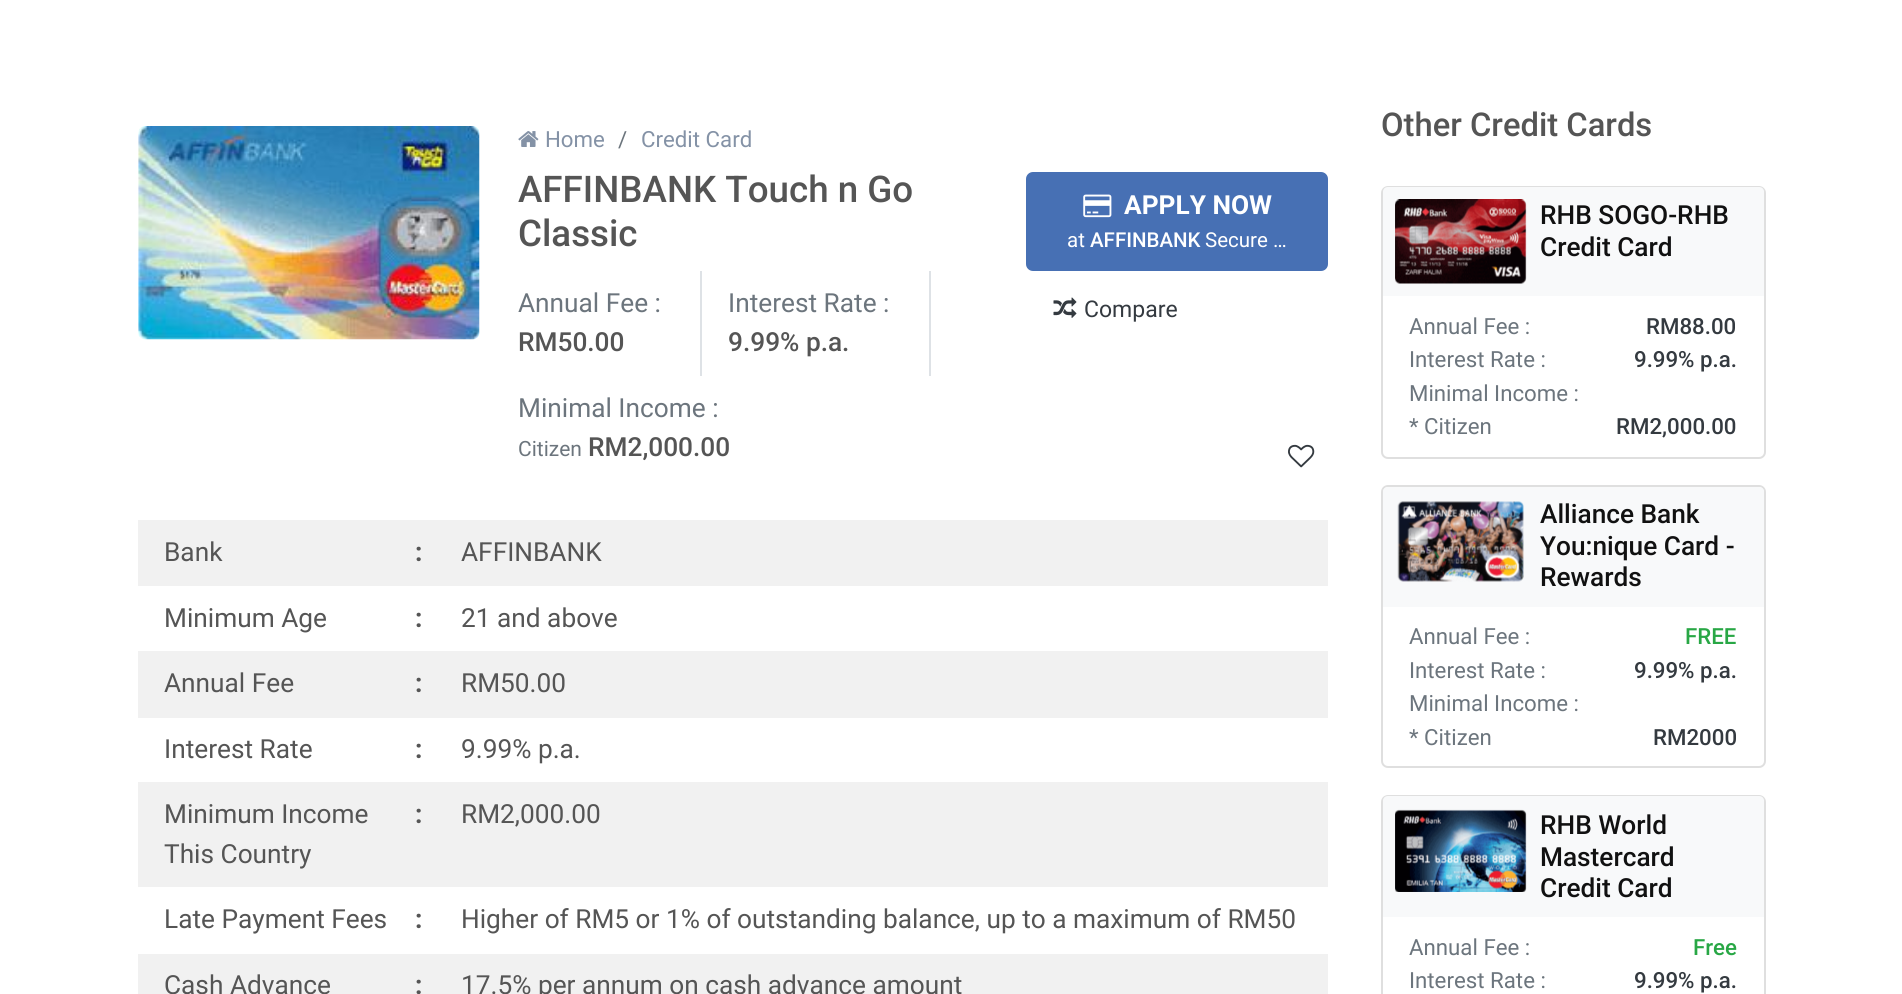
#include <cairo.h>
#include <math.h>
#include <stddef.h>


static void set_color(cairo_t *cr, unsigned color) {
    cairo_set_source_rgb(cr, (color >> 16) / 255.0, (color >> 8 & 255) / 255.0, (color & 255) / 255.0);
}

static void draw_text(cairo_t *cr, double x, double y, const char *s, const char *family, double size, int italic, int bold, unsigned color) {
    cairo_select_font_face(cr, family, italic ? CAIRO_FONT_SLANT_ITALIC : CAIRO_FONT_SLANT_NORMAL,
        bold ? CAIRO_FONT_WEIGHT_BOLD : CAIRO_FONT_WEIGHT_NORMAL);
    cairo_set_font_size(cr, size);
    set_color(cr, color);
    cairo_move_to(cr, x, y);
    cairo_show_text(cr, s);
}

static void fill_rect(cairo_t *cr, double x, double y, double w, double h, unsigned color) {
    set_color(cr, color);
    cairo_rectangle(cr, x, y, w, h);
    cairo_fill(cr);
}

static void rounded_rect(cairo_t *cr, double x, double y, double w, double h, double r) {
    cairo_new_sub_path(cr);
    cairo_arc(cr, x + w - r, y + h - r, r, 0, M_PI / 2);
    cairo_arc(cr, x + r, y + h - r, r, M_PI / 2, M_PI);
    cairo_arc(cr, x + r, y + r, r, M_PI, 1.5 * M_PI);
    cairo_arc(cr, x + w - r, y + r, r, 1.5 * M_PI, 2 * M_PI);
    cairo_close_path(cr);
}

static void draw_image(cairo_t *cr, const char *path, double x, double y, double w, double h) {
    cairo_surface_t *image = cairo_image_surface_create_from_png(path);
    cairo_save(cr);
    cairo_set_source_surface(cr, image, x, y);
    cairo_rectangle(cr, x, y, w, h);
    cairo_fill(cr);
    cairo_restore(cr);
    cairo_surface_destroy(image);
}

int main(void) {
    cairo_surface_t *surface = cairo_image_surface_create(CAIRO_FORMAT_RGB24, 1902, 994);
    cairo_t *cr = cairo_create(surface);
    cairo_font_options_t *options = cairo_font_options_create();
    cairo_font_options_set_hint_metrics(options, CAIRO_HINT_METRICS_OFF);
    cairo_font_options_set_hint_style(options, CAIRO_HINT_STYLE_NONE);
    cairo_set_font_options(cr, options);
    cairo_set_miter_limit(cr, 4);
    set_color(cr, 0xFFFFFF);
    cairo_paint(cr);
    draw_image(cr, "assets/img1.png", 138, 126, 342, 214);
    draw_image(cr, "assets/img2.png", 518, 131, 21, 16);
    draw_text(cr, 545, 147, "Home", "Roboto", 22.25, 0, 0, 0x8492A6);
    draw_text(cr, 618, 147, "/", "Roboto", 22.25, 0, 0, 0x6C757D);
    draw_text(cr, 641, 147, "Credit Card", "Roboto", 22.25, 0, 0, 0x8492A6);
    draw_text(cr, 518, 202, "AFFINBANK Touch n Go", "Roboto Medium", 36.75, 0, 0, 0x555555);
    draw_text(cr, 518, 246, "Classic", "Roboto Medium", 36.75, 0, 0, 0x555555);
    set_color(cr, 0x4770B4);
    rounded_rect(cr, 1027, 173, 300, 97, 6);
    cairo_fill_preserve(cr);
    cairo_stroke(cr);
    draw_image(cr, "assets/img3.png", 1083, 194, 29, 24);
    draw_text(cr, 1124, 214, "APPLY NOW", "Roboto", 26.25, 0, 1, 0xFFFFFF);
    draw_text(cr, 1067, 247, "at", "Roboto", 20.5, 0, 0, 0xFFFFFF);
    draw_text(cr, 1090, 247, "AFFINBANK", "Roboto Medium", 20.5, 0, 0, 0xFFFFFF);
    draw_text(cr, 1205, 247, "Secure …", "Roboto", 20.5, 0, 0, 0xFFFFFF);
    draw_image(cr, "assets/img4.png", 1053, 297, 24, 21);
    draw_text(cr, 1084, 317, "Compare", "Roboto", 23, 0, 0, 0x343A40);
    fill_rect(cr, 700, 271, 2, 105, 0xDEE2E6);
    draw_text(cr, 518, 312, "Annual Fee :", "Roboto", 26.25, 0, 0, 0x6C757D);
    draw_text(cr, 518, 351, "RM50.00", "Roboto Medium", 26.25, 0, 0, 0x555555);
    fill_rect(cr, 929, 271, 2, 105, 0xDEE2E6);
    draw_text(cr, 728, 312, "Interest Rate :", "Roboto", 26.25, 0, 0, 0x6C757D);
    draw_text(cr, 728, 351, "9.99% p.a.", "Roboto Medium", 26.25, 0, 0, 0x555555);
    draw_text(cr, 518, 417, "Minimal Income :", "Roboto", 26.25, 0, 0, 0x6C757D);
    draw_text(cr, 518, 456, "Citizen", "Roboto", 21, 0, 0, 0x6C757D);
    draw_text(cr, 588, 456, "RM2,000.00", "Roboto Medium", 26.25, 0, 0, 0x555555);
    draw_image(cr, "assets/img5.png", 1288, 444, 27, 24);
    fill_rect(cr, 138, 520, 1190, 66, 0xF1F1F1);
    draw_text(cr, 164, 561, "Bank", "Roboto", 26.25, 0, 0, 0x555555);
    draw_text(cr, 415, 561, ":", "Roboto", 26.25, 0, 1, 0x555555);
    draw_text(cr, 461, 561, "AFFINBANK", "Roboto", 26.25, 0, 0, 0x555555);
    draw_text(cr, 164, 627, "Minimum Age", "Roboto", 26.25, 0, 0, 0x555555);
    draw_text(cr, 415, 627, ":", "Roboto", 26.25, 0, 1, 0x555555);
    draw_text(cr, 461, 627, "21 and above", "Roboto", 26.25, 0, 0, 0x555555);
    fill_rect(cr, 138, 651, 1190, 67, 0xF1F1F1);
    draw_text(cr, 164, 692, "Annual Fee", "Roboto", 26.25, 0, 0, 0x555555);
    draw_text(cr, 415, 692, ":", "Roboto", 26.25, 0, 1, 0x555555);
    draw_text(cr, 461, 692, "RM50.00", "Roboto", 26.25, 0, 0, 0x555555);
    draw_text(cr, 164, 758, "Interest Rate", "Roboto", 26.25, 0, 0, 0x555555);
    draw_text(cr, 415, 758, ":", "Roboto", 26.25, 0, 1, 0x555555);
    draw_text(cr, 461, 758, "9.99% p.a.", "Roboto", 26.25, 0, 0, 0x555555);
    fill_rect(cr, 138, 782, 1190, 105, 0xF1F1F1);
    draw_text(cr, 164, 823, "Minimum Income", "Roboto", 26.25, 0, 0, 0x555555);
    draw_text(cr, 415, 823, ":", "Roboto", 26.25, 0, 1, 0x555555);
    draw_text(cr, 164, 863, "This Country", "Roboto", 26.25, 0, 0, 0x555555);
    draw_text(cr, 461, 823, "RM2,000.00", "Roboto", 26.25, 0, 0, 0x555555);
    draw_text(cr, 164, 928, "Late Payment Fees", "Roboto", 26.25, 0, 0, 0x555555);
    draw_text(cr, 415, 928, ":", "Roboto", 26.25, 0, 1, 0x555555);
    draw_text(cr, 461, 928, "Higher of RM5 or 1% of outstanding balance, up to a maximum of RM50", "Roboto", 26.25, 0, 0, 0x555555);
    fill_rect(cr, 138, 954, 1190, 40, 0xF1F1F1);
    draw_text(cr, 164, 994, "Cash Advance", "Roboto", 26.25, 0, 0, 0x555555);
    draw_text(cr, 415, 994, ":", "Roboto", 26.25, 0, 1, 0x555555);
    draw_text(cr, 461, 994, "17.5% per annum on cash advance amount", "Roboto", 26.25, 0, 0, 0x555555);
    draw_text(cr, 1381, 136, "Other Credit Cards", "Roboto Medium", 32.75, 0, 0, 0x555555);
    rounded_rect(cr, 1382, 187, 383, 271, 6);
    set_color(cr, 0xDFDFDF);
    cairo_stroke(cr);
    set_color(cr, 0xF8F9FA);
    cairo_new_path(cr);
    cairo_move_to(cr, 1388, 187);
    cairo_line_to(cr, 1759, 187);
    cairo_curve_to(cr, 1762, 187, 1764, 189, 1764, 192);
    cairo_line_to(cr, 1764, 296);
    cairo_line_to(cr, 1383, 296);
    cairo_line_to(cr, 1383, 192);
    cairo_curve_to(cr, 1383, 189, 1385, 187, 1388, 187);
    cairo_close_path(cr);
    cairo_fill(cr);
    draw_image(cr, "assets/img6.png", 1395, 199, 132, 85);
    draw_text(cr, 1540, 224, "RHB SOGO-RHB", "Roboto Medium", 26.25, 0, 0, 0x111111);
    draw_text(cr, 1540, 256, "Credit Card", "Roboto Medium", 26.25, 0, 0, 0x111111);
    draw_text(cr, 1409, 334, "Annual Fee :", "Roboto", 22.25, 0, 0, 0x6C757D);
    draw_text(cr, 1646, 334, "RM88.00", "Roboto Medium", 22.25, 0, 0, 0x343A40);
    draw_text(cr, 1409, 367, "Interest Rate :", "Roboto", 22.25, 0, 0, 0x6C757D);
    draw_text(cr, 1634, 367, "9.99% p.a.", "Roboto Medium", 22.25, 0, 0, 0x343A40);
    draw_text(cr, 1409, 401, "Minimal Income :", "Roboto", 22.25, 0, 0, 0x6C757D);
    draw_text(cr, 1409, 434, "* Citizen", "Roboto", 22.25, 0, 0, 0x6C757D);
    draw_text(cr, 1616, 434, "RM2,000.00", "Roboto Medium", 22.25, 0, 0, 0x343A40);
    rounded_rect(cr, 1382, 486, 383, 281, 6);
    set_color(cr, 0xDFDFDF);
    cairo_stroke(cr);
    set_color(cr, 0xF8F9FA);
    cairo_new_path(cr);
    cairo_move_to(cr, 1388, 487);
    cairo_line_to(cr, 1759, 487);
    cairo_curve_to(cr, 1762, 487, 1764, 489, 1764, 492);
    cairo_line_to(cr, 1764, 607);
    cairo_line_to(cr, 1383, 607);
    cairo_line_to(cr, 1383, 492);
    cairo_curve_to(cr, 1383, 489, 1385, 487, 1388, 487);
    cairo_close_path(cr);
    cairo_fill(cr);
    draw_image(cr, "assets/img7.png", 1397, 501, 127, 81);
    draw_text(cr, 1540, 523, "Alliance Bank", "Roboto Medium", 26.25, 0, 0, 0x111111);
    draw_text(cr, 1540, 555, "You:nique Card -", "Roboto Medium", 26.25, 0, 0, 0x111111);
    draw_text(cr, 1540, 586, "Rewards", "Roboto Medium", 26.25, 0, 0, 0x111111);
    draw_text(cr, 1409, 644, "Annual Fee :", "Roboto", 22.25, 0, 0, 0x6C757D);
    draw_text(cr, 1685, 644, "FREE", "Roboto Medium", 22.25, 0, 0, 0x28A745);
    draw_text(cr, 1409, 678, "Interest Rate :", "Roboto", 22.25, 0, 0, 0x6C757D);
    draw_text(cr, 1634, 678, "9.99% p.a.", "Roboto Medium", 22.25, 0, 0, 0x343A40);
    draw_text(cr, 1409, 711, "Minimal Income :", "Roboto", 22.25, 0, 0, 0x6C757D);
    draw_text(cr, 1409, 745, "* Citizen", "Roboto", 22.25, 0, 0, 0x6C757D);
    draw_text(cr, 1653, 745, "RM2000", "Roboto Medium", 22.25, 0, 0, 0x343A40);
    rounded_rect(cr, 1382, 796, 383, 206, 6);
    set_color(cr, 0xDFDFDF);
    cairo_stroke(cr);
    set_color(cr, 0xF8F9FA);
    cairo_new_path(cr);
    cairo_move_to(cr, 1388, 796);
    cairo_line_to(cr, 1759, 796);
    cairo_curve_to(cr, 1762, 796, 1764, 798, 1764, 801);
    cairo_line_to(cr, 1764, 917);
    cairo_line_to(cr, 1383, 917);
    cairo_line_to(cr, 1383, 801);
    cairo_curve_to(cr, 1383, 798, 1385, 796, 1388, 796);
    cairo_close_path(cr);
    cairo_fill(cr);
    draw_image(cr, "assets/img8.png", 1395, 809, 132, 83);
    draw_text(cr, 1540, 834, "RHB World", "Roboto Medium", 26.25, 0, 0, 0x111111);
    draw_text(cr, 1540, 866, "Mastercard", "Roboto Medium", 26.25, 0, 0, 0x111111);
    draw_text(cr, 1540, 897, "Credit Card", "Roboto Medium", 26.25, 0, 0, 0x111111);
    draw_text(cr, 1409, 955, "Annual Fee :", "Roboto", 22.25, 0, 0, 0x6C757D);
    draw_text(cr, 1693, 955, "Free", "Roboto Medium", 22.25, 0, 0, 0x28A745);
    draw_text(cr, 1409, 988, "Interest Rate :", "Roboto", 22.25, 0, 0, 0x6C757D);
    draw_text(cr, 1634, 988, "9.99% p.a.", "Roboto Medium", 22.25, 0, 0, 0x343A40);
    cairo_surface_write_to_png(surface, "output.png");
    cairo_font_options_destroy(options);
    cairo_destroy(cr);
    cairo_surface_destroy(surface);
    return 0;
}
